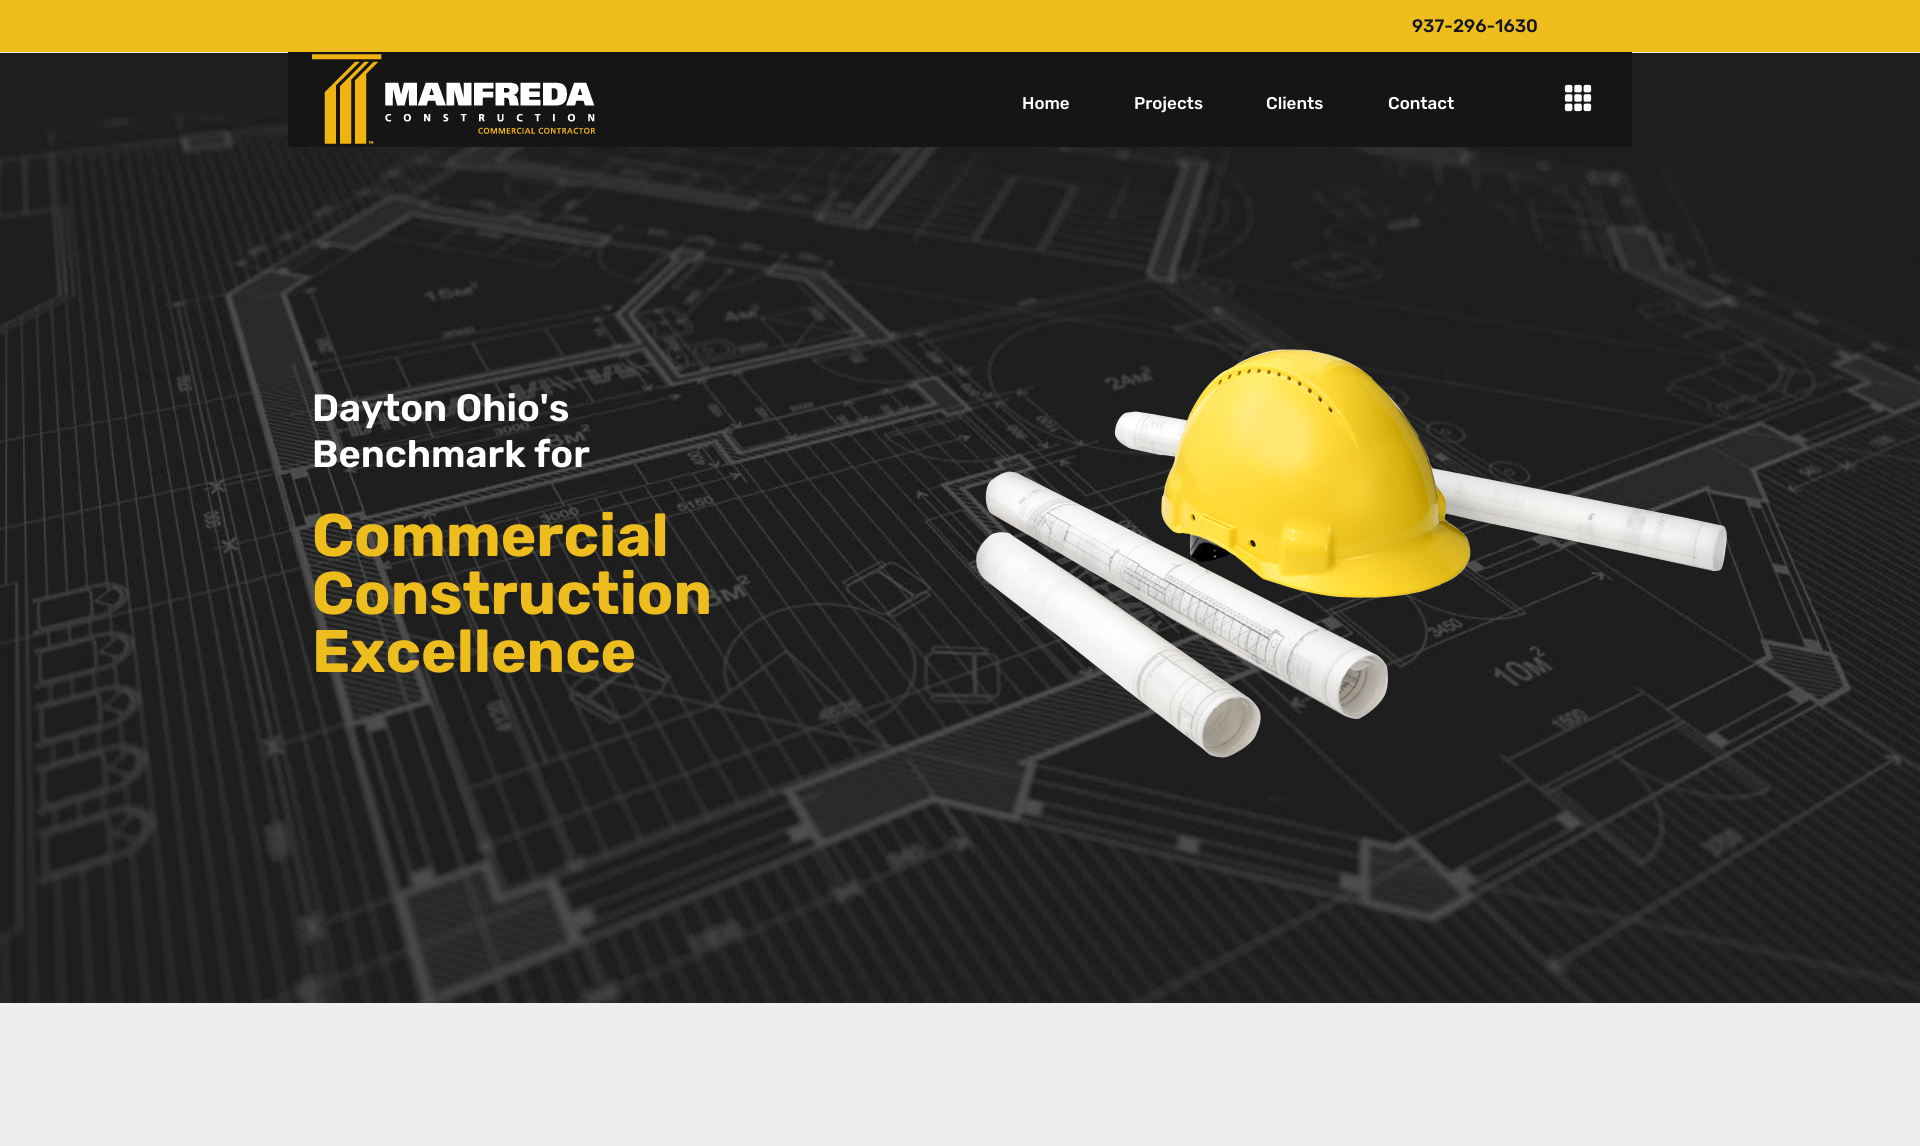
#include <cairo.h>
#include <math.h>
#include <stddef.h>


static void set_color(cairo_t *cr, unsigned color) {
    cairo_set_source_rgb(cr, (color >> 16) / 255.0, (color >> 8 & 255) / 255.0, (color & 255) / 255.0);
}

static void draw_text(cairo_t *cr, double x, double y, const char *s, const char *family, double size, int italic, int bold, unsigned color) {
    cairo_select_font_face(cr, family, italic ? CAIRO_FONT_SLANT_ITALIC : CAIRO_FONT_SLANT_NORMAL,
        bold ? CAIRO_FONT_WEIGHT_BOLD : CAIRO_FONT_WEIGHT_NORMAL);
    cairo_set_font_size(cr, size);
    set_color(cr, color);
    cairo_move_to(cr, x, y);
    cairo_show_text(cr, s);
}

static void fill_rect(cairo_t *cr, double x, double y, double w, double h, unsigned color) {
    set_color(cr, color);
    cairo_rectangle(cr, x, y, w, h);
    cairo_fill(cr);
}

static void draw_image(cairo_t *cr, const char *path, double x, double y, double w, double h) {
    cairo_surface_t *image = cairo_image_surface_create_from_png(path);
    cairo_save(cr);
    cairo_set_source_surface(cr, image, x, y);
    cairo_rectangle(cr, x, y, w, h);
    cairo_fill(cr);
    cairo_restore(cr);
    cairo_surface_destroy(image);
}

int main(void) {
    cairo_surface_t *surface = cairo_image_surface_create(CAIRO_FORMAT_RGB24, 1920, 1146);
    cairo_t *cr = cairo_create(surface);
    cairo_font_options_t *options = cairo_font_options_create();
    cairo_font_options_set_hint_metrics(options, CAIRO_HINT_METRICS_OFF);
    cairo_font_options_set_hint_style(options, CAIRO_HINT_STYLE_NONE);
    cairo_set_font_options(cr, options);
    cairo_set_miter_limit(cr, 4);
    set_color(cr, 0xEEEEEE);
    cairo_paint(cr);
    fill_rect(cr, 0, 0, 1920, 52, 0xEDBC1D);
    draw_text(cr, 1412, 32, "937-296-1630", "Rubik Medium", 18, 0, 0, 0x141422);
    draw_image(cr, "assets/img3.png", 0, 53, 1920, 950);
    fill_rect(cr, 288, 52, 1344, 95, 0x151515);
    draw_image(cr, "assets/img1.png", 312, 54, 283, 90);
    draw_text(cr, 1022, 109, "Home", "Rubik Medium", 17, 0, 0, 0xFFFFFF);
    draw_text(cr, 1134, 109, "Projects", "Rubik Medium", 17, 0, 0, 0xFFFFFF);
    draw_text(cr, 1266, 109, "Clients", "Rubik Medium", 17, 0, 0, 0xFFFFFF);
    draw_text(cr, 1388, 109, "Contact", "Rubik Medium", 17, 0, 0, 0xFFFFFF);
    draw_image(cr, "assets/img2.png", 1564, 84, 28, 28);
    draw_text(cr, 312, 421, "Dayton Ohio's", "Rubik SemiBold", 38, 0, 0, 0xFFFFFF);
    draw_text(cr, 312, 467, "Benchmark for", "Rubik SemiBold", 38, 0, 0, 0xFFFFFF);
    draw_text(cr, 312, 556, "Commercial", "Rubik", 60, 0, 1, 0xEDBC1D);
    draw_text(cr, 312, 614, "Construction", "Rubik", 60, 0, 1, 0xEDBC1D);
    draw_text(cr, 312, 672, "Excellence", "Rubik", 60, 0, 1, 0xEDBC1D);
    draw_image(cr, "assets/img4.png", 976, 349, 751, 453);
    cairo_surface_write_to_png(surface, "output.png");
    cairo_font_options_destroy(options);
    cairo_destroy(cr);
    cairo_surface_destroy(surface);
    return 0;
}
